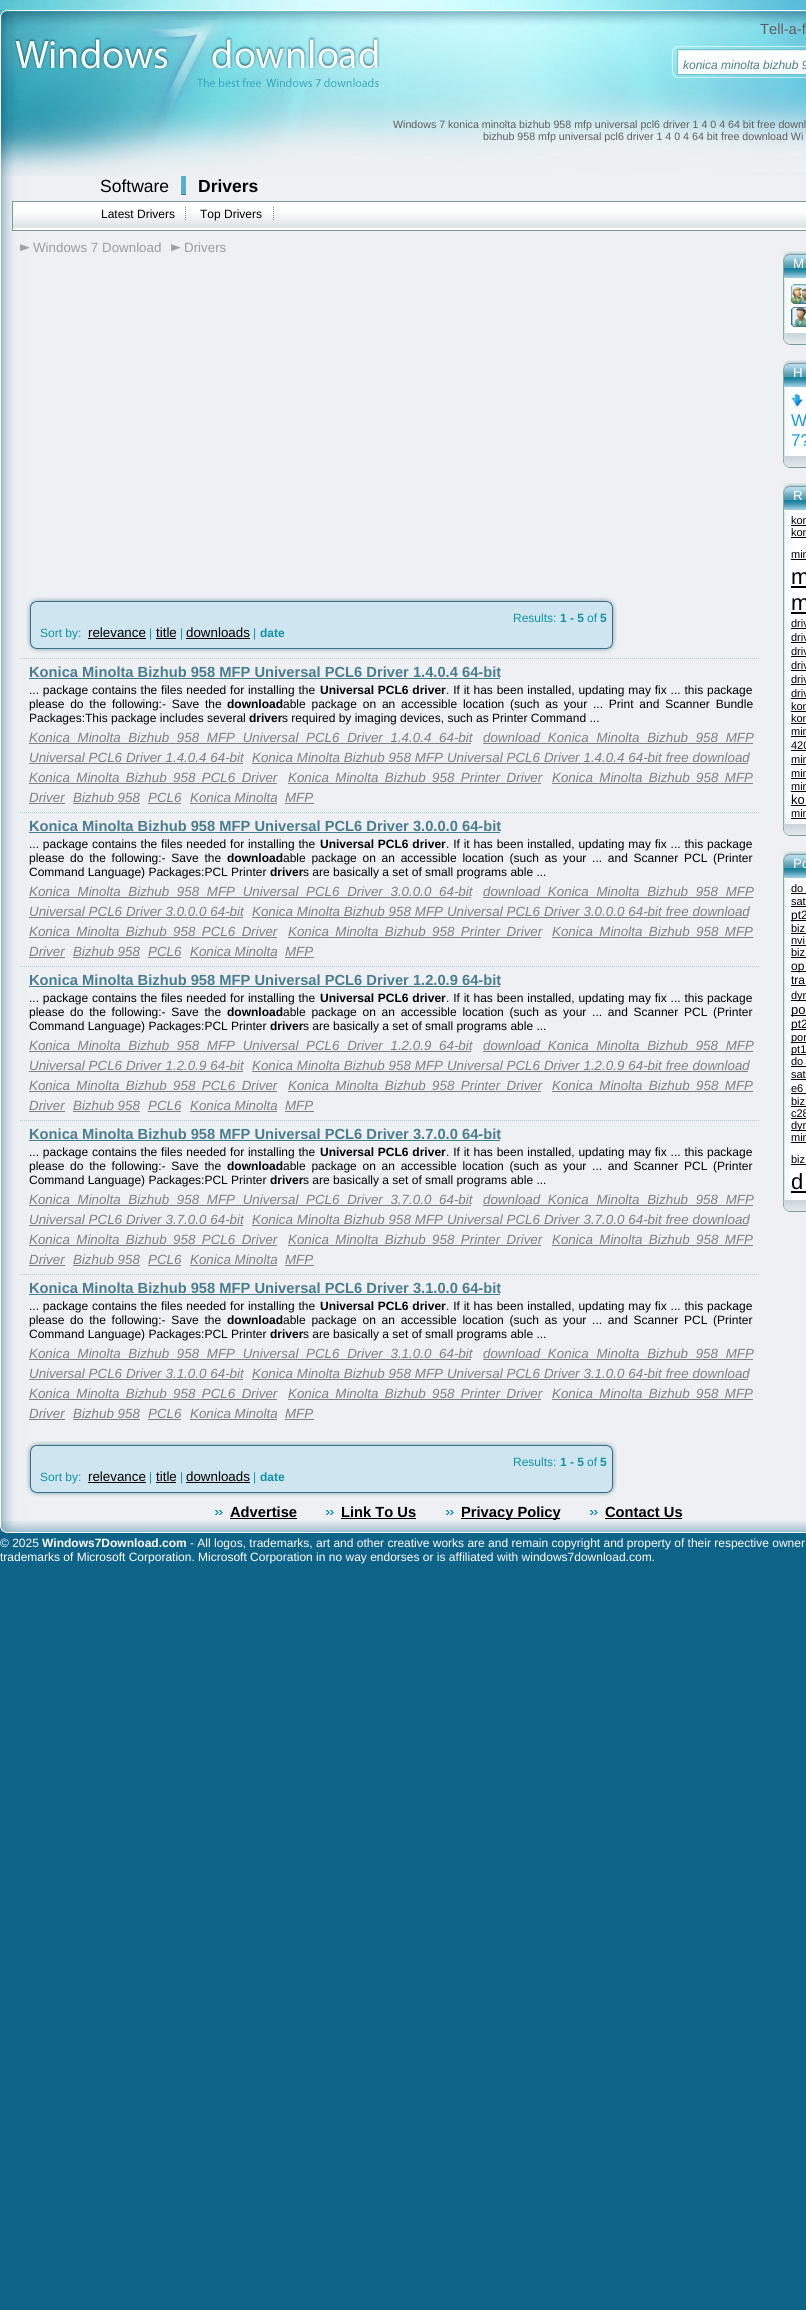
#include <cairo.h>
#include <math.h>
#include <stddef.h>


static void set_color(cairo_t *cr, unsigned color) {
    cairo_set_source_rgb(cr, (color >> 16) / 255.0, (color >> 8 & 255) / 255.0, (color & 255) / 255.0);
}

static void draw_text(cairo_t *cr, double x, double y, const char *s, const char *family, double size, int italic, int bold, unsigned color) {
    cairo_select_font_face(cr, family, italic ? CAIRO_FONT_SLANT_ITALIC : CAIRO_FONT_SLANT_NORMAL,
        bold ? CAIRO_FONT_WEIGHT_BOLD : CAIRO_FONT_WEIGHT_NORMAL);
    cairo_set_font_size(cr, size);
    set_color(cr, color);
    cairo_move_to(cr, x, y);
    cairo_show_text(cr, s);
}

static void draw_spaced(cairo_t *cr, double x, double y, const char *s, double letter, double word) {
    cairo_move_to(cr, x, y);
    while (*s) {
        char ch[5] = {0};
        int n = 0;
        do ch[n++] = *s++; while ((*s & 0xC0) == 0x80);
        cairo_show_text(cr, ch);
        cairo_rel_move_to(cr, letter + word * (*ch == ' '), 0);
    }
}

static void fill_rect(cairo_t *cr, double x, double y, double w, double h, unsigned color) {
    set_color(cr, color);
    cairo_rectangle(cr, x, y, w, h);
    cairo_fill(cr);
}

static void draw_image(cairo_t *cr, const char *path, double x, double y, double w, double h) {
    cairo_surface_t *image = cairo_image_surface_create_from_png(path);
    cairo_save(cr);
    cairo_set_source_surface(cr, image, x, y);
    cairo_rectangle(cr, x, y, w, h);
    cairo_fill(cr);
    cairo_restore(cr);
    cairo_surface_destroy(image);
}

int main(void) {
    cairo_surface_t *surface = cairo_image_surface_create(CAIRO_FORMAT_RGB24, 806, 2310);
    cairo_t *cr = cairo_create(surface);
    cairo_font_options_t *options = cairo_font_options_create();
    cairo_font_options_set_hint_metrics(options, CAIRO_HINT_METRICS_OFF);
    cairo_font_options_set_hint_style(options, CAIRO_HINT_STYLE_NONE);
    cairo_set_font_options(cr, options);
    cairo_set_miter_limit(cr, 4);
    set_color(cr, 0x0E6389);
    cairo_paint(cr);
    draw_image(cr, "assets/img1.png", 0, 0, 806, 10);
    draw_image(cr, "assets/img2.png", 0, 10, 806, 10);
    draw_image(cr, "assets/img3.png", 0, 20, 806, 156);
    draw_image(cr, "assets/img4.png", 10, 20, 374, 123);
    draw_text(cr, 760, 34, "Tell-a-f", "Liberation Sans", 14.7, 0, 0, 0x5F5B5B);
    draw_image(cr, "assets/img5.png", 670, 45, 136, 33);
    fill_rect(cr, 678, 72, 128, 2, 0xFFFFFF);
    draw_image(cr, "assets/img6.png", 678, 50, 128, 22);
    cairo_rectangle(cr, 677.5, 49.5, 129, 25);
    set_color(cr, 0x78BFCF);
    cairo_set_line_width(cr, 1);
    cairo_stroke(cr);
    draw_text(cr, 683, 69, "konica minolta bizhub 9", "Liberation Sans", 12, 1, 0, 0x547D87);
    draw_text(cr, 393, 128, "Windows 7 konica minolta bizhub 958 mfp universal pcl6 driver 1 4 0 4 64 bit free downl", "Liberation Sans", 10.65, 0, 0, 0x5F5B5B);
    draw_text(cr, 483, 140, "bizhub 958 mfp universal pcl6 driver 1 4 0 4 64 bit free download Wi", "Liberation Sans", 10.65, 0, 0, 0x5F5B5B);
    draw_image(cr, "assets/img7.png", 0, 176, 806, 1345);
    draw_text(cr, 100, 192, "Software", "Liberation Sans", 17.5, 0, 0, 0x000000);
    draw_image(cr, "assets/img8.png", 181, 176, 5, 19);
    draw_text(cr, 198, 192, "Drivers", "Liberation Sans", 17.5, 0, 1, 0x000000);
    draw_image(cr, "assets/img9.png", 13, 202, 793, 28);
    cairo_rectangle(cr, 12.5, 201.5, 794, 29);
    set_color(cr, 0x7B999E);
    cairo_stroke(cr);
    draw_text(cr, 101, 218, "Latest Drivers", "Liberation Sans", 12, 0, 0, 0x000000);
    cairo_new_path(cr);
    cairo_move_to(cr, 185.5, 207);
    cairo_line_to(cr, 185.5, 221);
    set_color(cr, 0x808080);
    cairo_set_dash(cr, (double[]){1, 1}, 2, 0);
    cairo_stroke(cr);
    draw_text(cr, 200, 218, "Top Drivers", "Liberation Sans", 12, 0, 0, 0x000000);
    cairo_new_path(cr);
    cairo_move_to(cr, 273.5, 207);
    cairo_line_to(cr, 273.5, 221);
    set_color(cr, 0x808080);
    cairo_stroke(cr);
    draw_image(cr, "assets/img10.png", 20, 244, 10, 7);
    draw_text(cr, 33, 252, "Windows 7 Download", "Liberation Sans", 13.35, 0, 0, 0x999D9F);
    draw_image(cr, "assets/img11.png", 171, 244, 10, 7);
    draw_text(cr, 184, 252, "Drivers", "Liberation Sans", 13.35, 0, 0, 0x999D9F);
    draw_image(cr, "assets/img12.png", 25, 597, 592, 14);
    draw_image(cr, "assets/img13.png", 26, 611, 591, 29);
    draw_text(cr, 513, 622, "Results:", "Liberation Sans", 12, 0, 0, 0x1291A4);
    draw_text(cr, 560, 622, "1 - 5", "Liberation Sans", 12, 0, 1, 0x1291A4);
    draw_text(cr, 587, 622, "of", "Liberation Sans", 12, 0, 0, 0x1291A4);
    draw_text(cr, 600, 622, "5", "Liberation Sans", 12, 0, 1, 0x1291A4);
    draw_text(cr, 40, 637, "Sort by:", "Liberation Sans", 12, 0, 0, 0x1291A4);
    draw_text(cr, 88, 637, "relevance", "Liberation Sans", 13.35, 0, 0, 0x000000);
    fill_rect(cr, 88, 638, 58, 1, 0x000000);
    draw_text(cr, 149, 637, "|", "Liberation Sans", 12, 0, 0, 0x1291A4);
    draw_text(cr, 156, 637, "title", "Liberation Sans", 13.35, 0, 0, 0x000000);
    fill_rect(cr, 156, 638, 20, 1, 0x000000);
    draw_text(cr, 180, 637, "|", "Liberation Sans", 12, 0, 0, 0x1291A4);
    draw_text(cr, 186, 637, "downloads", "Liberation Sans", 13.35, 0, 0, 0x000000);
    fill_rect(cr, 186, 638, 64, 1, 0x000000);
    draw_text(cr, 253, 637, "|", "Liberation Sans", 12, 0, 0, 0x1291A4);
    draw_text(cr, 260, 637, "date", "Liberation Sans", 12, 0, 1, 0x1291A4);
    draw_image(cr, "assets/img14.png", 26, 640, 591, 14);
    cairo_new_path(cr);
    cairo_move_to(cr, 20, 658.5);
    cairo_line_to(cr, 760, 658.5);
    set_color(cr, 0xAFCCD2);
    cairo_stroke(cr);
    draw_text(cr, 29, 677, "Konica Minolta Bizhub 958 MFP Universal PCL6 Driver 1.4.0.4 64-bit", "Liberation Sans", 14.7, 0, 1, 0x4B7D91);
    fill_rect(cr, 29, 678, 471, 1, 0x4B7D91);
    cairo_select_font_face(cr, "Liberation Sans", CAIRO_FONT_SLANT_NORMAL, CAIRO_FONT_WEIGHT_NORMAL);
    cairo_set_font_size(cr, 12);
    set_color(cr, 0x000000);
    draw_spaced(cr, 29, 694, "... package contains the files needed for installing the", 0, 0.5);
    cairo_select_font_face(cr, "Liberation Sans", CAIRO_FONT_SLANT_NORMAL, CAIRO_FONT_WEIGHT_BOLD);
    draw_spaced(cr, 320, 694, "Universal PCL6 driver", 0, 0.5);
    cairo_select_font_face(cr, "Liberation Sans", CAIRO_FONT_SLANT_NORMAL, CAIRO_FONT_WEIGHT_NORMAL);
    draw_spaced(cr, 446, 694, ". If it has been installed, updating may fix ... this package", 0, 0.5);
    draw_spaced(cr, 29, 708, "please do the following:- Save the", 0, 2.5);
    draw_text(cr, 227, 708, "download", "Liberation Sans", 12, 0, 1, 0x000000);
    cairo_select_font_face(cr, "Liberation Sans", CAIRO_FONT_SLANT_NORMAL, CAIRO_FONT_WEIGHT_NORMAL);
    draw_spaced(cr, 283, 708, "able package on an accessible location (such as your ... Print and Scanner Bundle", 0, 2.5);
    draw_text(cr, 29, 722, "Packages:This package includes several", "Liberation Sans", 12, 0, 0, 0x000000);
    draw_text(cr, 249, 722, "driver", "Liberation Sans", 12, 0, 1, 0x000000);
    draw_text(cr, 282, 722, "s required by imaging devices, such as Printer Command ...", "Liberation Sans", 12, 0, 0, 0x000000);
    cairo_select_font_face(cr, "Liberation Sans", CAIRO_FONT_SLANT_ITALIC, CAIRO_FONT_WEIGHT_NORMAL);
    cairo_set_font_size(cr, 13.35);
    set_color(cr, 0x808080);
    draw_spaced(cr, 29, 742, "Konica Minolta Bizhub 958 MFP Universal PCL6 Driver 1.4.0.4 64-bit", 0, 4);
    fill_rect(cr, 29, 743, 442, 1, 0x808080);
    draw_spaced(cr, 483, 742, "download Konica Minolta Bizhub 958 MFP", 0, 4);
    fill_rect(cr, 483, 743, 270, 1, 0x808080);
    draw_spaced(cr, 29, 762, "Universal PCL6 Driver 1.4.0.4 64-bit", 0, 0.25);
    fill_rect(cr, 29, 763, 214, 1, 0x808080);
    draw_spaced(cr, 252, 762, "Konica Minolta Bizhub 958 MFP Universal PCL6 Driver 1.4.0.4 64-bit free download", 0, 0.25);
    fill_rect(cr, 252, 763, 496, 1, 0x808080);
    draw_spaced(cr, 29, 782, "Konica Minolta Bizhub 958 PCL6 Driver", 0, 2.75);
    fill_rect(cr, 29, 783, 248, 1, 0x808080);
    draw_spaced(cr, 288, 782, "Konica Minolta Bizhub 958 Printer Driver", 0, 2.75);
    fill_rect(cr, 288, 783, 253, 1, 0x808080);
    draw_spaced(cr, 552, 782, "Konica Minolta Bizhub 958 MFP", 0, 2.75);
    fill_rect(cr, 552, 783, 201, 1, 0x808080);
    draw_text(cr, 29, 802, "Driver", "Liberation Sans", 13.35, 1, 0, 0x808080);
    fill_rect(cr, 29, 803, 36, 1, 0x808080);
    draw_text(cr, 73, 802, "Bizhub 958", "Liberation Sans", 13.35, 1, 0, 0x808080);
    fill_rect(cr, 73, 803, 67, 1, 0x808080);
    draw_text(cr, 148, 802, "PCL6", "Liberation Sans", 13.35, 1, 0, 0x808080);
    fill_rect(cr, 148, 803, 33, 1, 0x808080);
    draw_text(cr, 190, 802, "Konica Minolta", "Liberation Sans", 13.35, 1, 0, 0x808080);
    fill_rect(cr, 190, 803, 87, 1, 0x808080);
    draw_text(cr, 285, 802, "MFP", "Liberation Sans", 13.35, 1, 0, 0x808080);
    fill_rect(cr, 285, 803, 29, 1, 0x808080);
    cairo_new_path(cr);
    cairo_move_to(cr, 20, 812.5);
    cairo_line_to(cr, 760, 812.5);
    set_color(cr, 0xAFCCD2);
    cairo_stroke(cr);
    draw_text(cr, 29, 831, "Konica Minolta Bizhub 958 MFP Universal PCL6 Driver 3.0.0.0 64-bit", "Liberation Sans", 14.7, 0, 1, 0x4B7D91);
    fill_rect(cr, 29, 832, 471, 1, 0x4B7D91);
    cairo_select_font_face(cr, "Liberation Sans", CAIRO_FONT_SLANT_NORMAL, CAIRO_FONT_WEIGHT_NORMAL);
    cairo_set_font_size(cr, 12);
    set_color(cr, 0x000000);
    draw_spaced(cr, 29, 848, "... package contains the files needed for installing the", 0, 0.5);
    cairo_select_font_face(cr, "Liberation Sans", CAIRO_FONT_SLANT_NORMAL, CAIRO_FONT_WEIGHT_BOLD);
    draw_spaced(cr, 320, 848, "Universal PCL6 driver", 0, 0.5);
    cairo_select_font_face(cr, "Liberation Sans", CAIRO_FONT_SLANT_NORMAL, CAIRO_FONT_WEIGHT_NORMAL);
    draw_spaced(cr, 446, 848, ". If it has been installed, updating may fix ... this package", 0, 0.5);
    draw_spaced(cr, 29, 862, "please do the following:- Save the", 0, 2.4);
    draw_text(cr, 227, 862, "download", "Liberation Sans", 12, 0, 1, 0x000000);
    cairo_select_font_face(cr, "Liberation Sans", CAIRO_FONT_SLANT_NORMAL, CAIRO_FONT_WEIGHT_NORMAL);
    draw_spaced(cr, 283, 862, "able package on an accessible location (such as your ... and Scanner PCL (Printer", 0, 2.4);
    draw_text(cr, 29, 876, "Command Language) Packages:PCL Printer", "Liberation Sans", 12, 0, 0, 0x000000);
    draw_text(cr, 270, 876, "driver", "Liberation Sans", 12, 0, 1, 0x000000);
    draw_text(cr, 303, 876, "s are basically a set of small programs able ...", "Liberation Sans", 12, 0, 0, 0x000000);
    cairo_select_font_face(cr, "Liberation Sans", CAIRO_FONT_SLANT_ITALIC, CAIRO_FONT_WEIGHT_NORMAL);
    cairo_set_font_size(cr, 13.35);
    set_color(cr, 0x808080);
    draw_spaced(cr, 29, 896, "Konica Minolta Bizhub 958 MFP Universal PCL6 Driver 3.0.0.0 64-bit", 0, 4);
    fill_rect(cr, 29, 897, 442, 1, 0x808080);
    draw_spaced(cr, 483, 896, "download Konica Minolta Bizhub 958 MFP", 0, 4);
    fill_rect(cr, 483, 897, 270, 1, 0x808080);
    draw_spaced(cr, 29, 916, "Universal PCL6 Driver 3.0.0.0 64-bit", 0, 0.25);
    fill_rect(cr, 29, 917, 214, 1, 0x808080);
    draw_spaced(cr, 252, 916, "Konica Minolta Bizhub 958 MFP Universal PCL6 Driver 3.0.0.0 64-bit free download", 0, 0.25);
    fill_rect(cr, 252, 917, 496, 1, 0x808080);
    draw_spaced(cr, 29, 936, "Konica Minolta Bizhub 958 PCL6 Driver", 0, 2.75);
    fill_rect(cr, 29, 937, 248, 1, 0x808080);
    draw_spaced(cr, 288, 936, "Konica Minolta Bizhub 958 Printer Driver", 0, 2.75);
    fill_rect(cr, 288, 937, 253, 1, 0x808080);
    draw_spaced(cr, 552, 936, "Konica Minolta Bizhub 958 MFP", 0, 2.75);
    fill_rect(cr, 552, 937, 201, 1, 0x808080);
    draw_text(cr, 29, 956, "Driver", "Liberation Sans", 13.35, 1, 0, 0x808080);
    fill_rect(cr, 29, 957, 36, 1, 0x808080);
    draw_text(cr, 73, 956, "Bizhub 958", "Liberation Sans", 13.35, 1, 0, 0x808080);
    fill_rect(cr, 73, 957, 67, 1, 0x808080);
    draw_text(cr, 148, 956, "PCL6", "Liberation Sans", 13.35, 1, 0, 0x808080);
    fill_rect(cr, 148, 957, 33, 1, 0x808080);
    draw_text(cr, 190, 956, "Konica Minolta", "Liberation Sans", 13.35, 1, 0, 0x808080);
    fill_rect(cr, 190, 957, 87, 1, 0x808080);
    draw_text(cr, 285, 956, "MFP", "Liberation Sans", 13.35, 1, 0, 0x808080);
    fill_rect(cr, 285, 957, 29, 1, 0x808080);
    cairo_new_path(cr);
    cairo_move_to(cr, 20, 966.5);
    cairo_line_to(cr, 760, 966.5);
    set_color(cr, 0xAFCCD2);
    cairo_stroke(cr);
    draw_text(cr, 29, 985, "Konica Minolta Bizhub 958 MFP Universal PCL6 Driver 1.2.0.9 64-bit", "Liberation Sans", 14.7, 0, 1, 0x4B7D91);
    fill_rect(cr, 29, 986, 471, 1, 0x4B7D91);
    cairo_select_font_face(cr, "Liberation Sans", CAIRO_FONT_SLANT_NORMAL, CAIRO_FONT_WEIGHT_NORMAL);
    cairo_set_font_size(cr, 12);
    set_color(cr, 0x000000);
    draw_spaced(cr, 29, 1002, "... package contains the files needed for installing the", 0, 0.5);
    cairo_select_font_face(cr, "Liberation Sans", CAIRO_FONT_SLANT_NORMAL, CAIRO_FONT_WEIGHT_BOLD);
    draw_spaced(cr, 320, 1002, "Universal PCL6 driver", 0, 0.5);
    cairo_select_font_face(cr, "Liberation Sans", CAIRO_FONT_SLANT_NORMAL, CAIRO_FONT_WEIGHT_NORMAL);
    draw_spaced(cr, 446, 1002, ". If it has been installed, updating may fix ... this package", 0, 0.5);
    draw_spaced(cr, 29, 1016, "please do the following:- Save the", 0, 2.4);
    draw_text(cr, 227, 1016, "download", "Liberation Sans", 12, 0, 1, 0x000000);
    cairo_select_font_face(cr, "Liberation Sans", CAIRO_FONT_SLANT_NORMAL, CAIRO_FONT_WEIGHT_NORMAL);
    draw_spaced(cr, 283, 1016, "able package on an accessible location (such as your ... and Scanner PCL (Printer", 0, 2.4);
    draw_text(cr, 29, 1030, "Command Language) Packages:PCL Printer", "Liberation Sans", 12, 0, 0, 0x000000);
    draw_text(cr, 270, 1030, "driver", "Liberation Sans", 12, 0, 1, 0x000000);
    draw_text(cr, 303, 1030, "s are basically a set of small programs able ...", "Liberation Sans", 12, 0, 0, 0x000000);
    cairo_select_font_face(cr, "Liberation Sans", CAIRO_FONT_SLANT_ITALIC, CAIRO_FONT_WEIGHT_NORMAL);
    cairo_set_font_size(cr, 13.35);
    set_color(cr, 0x808080);
    draw_spaced(cr, 29, 1050, "Konica Minolta Bizhub 958 MFP Universal PCL6 Driver 1.2.0.9 64-bit", 0, 4);
    fill_rect(cr, 29, 1051, 442, 1, 0x808080);
    draw_spaced(cr, 483, 1050, "download Konica Minolta Bizhub 958 MFP", 0, 4);
    fill_rect(cr, 483, 1051, 270, 1, 0x808080);
    draw_spaced(cr, 29, 1070, "Universal PCL6 Driver 1.2.0.9 64-bit", 0, 0.25);
    fill_rect(cr, 29, 1071, 214, 1, 0x808080);
    draw_spaced(cr, 252, 1070, "Konica Minolta Bizhub 958 MFP Universal PCL6 Driver 1.2.0.9 64-bit free download", 0, 0.25);
    fill_rect(cr, 252, 1071, 496, 1, 0x808080);
    draw_spaced(cr, 29, 1090, "Konica Minolta Bizhub 958 PCL6 Driver", 0, 2.75);
    fill_rect(cr, 29, 1091, 248, 1, 0x808080);
    draw_spaced(cr, 288, 1090, "Konica Minolta Bizhub 958 Printer Driver", 0, 2.75);
    fill_rect(cr, 288, 1091, 253, 1, 0x808080);
    draw_spaced(cr, 552, 1090, "Konica Minolta Bizhub 958 MFP", 0, 2.75);
    fill_rect(cr, 552, 1091, 201, 1, 0x808080);
    draw_text(cr, 29, 1110, "Driver", "Liberation Sans", 13.35, 1, 0, 0x808080);
    fill_rect(cr, 29, 1111, 36, 1, 0x808080);
    draw_text(cr, 73, 1110, "Bizhub 958", "Liberation Sans", 13.35, 1, 0, 0x808080);
    fill_rect(cr, 73, 1111, 67, 1, 0x808080);
    draw_text(cr, 148, 1110, "PCL6", "Liberation Sans", 13.35, 1, 0, 0x808080);
    fill_rect(cr, 148, 1111, 33, 1, 0x808080);
    draw_text(cr, 190, 1110, "Konica Minolta", "Liberation Sans", 13.35, 1, 0, 0x808080);
    fill_rect(cr, 190, 1111, 87, 1, 0x808080);
    draw_text(cr, 285, 1110, "MFP", "Liberation Sans", 13.35, 1, 0, 0x808080);
    fill_rect(cr, 285, 1111, 29, 1, 0x808080);
    cairo_new_path(cr);
    cairo_move_to(cr, 20, 1120.5);
    cairo_line_to(cr, 760, 1120.5);
    set_color(cr, 0xAFCCD2);
    cairo_stroke(cr);
    draw_text(cr, 29, 1139, "Konica Minolta Bizhub 958 MFP Universal PCL6 Driver 3.7.0.0 64-bit", "Liberation Sans", 14.7, 0, 1, 0x4B7D91);
    fill_rect(cr, 29, 1140, 471, 1, 0x4B7D91);
    cairo_select_font_face(cr, "Liberation Sans", CAIRO_FONT_SLANT_NORMAL, CAIRO_FONT_WEIGHT_NORMAL);
    cairo_set_font_size(cr, 12);
    set_color(cr, 0x000000);
    draw_spaced(cr, 29, 1156, "... package contains the files needed for installing the", 0, 0.5);
    cairo_select_font_face(cr, "Liberation Sans", CAIRO_FONT_SLANT_NORMAL, CAIRO_FONT_WEIGHT_BOLD);
    draw_spaced(cr, 320, 1156, "Universal PCL6 driver", 0, 0.5);
    cairo_select_font_face(cr, "Liberation Sans", CAIRO_FONT_SLANT_NORMAL, CAIRO_FONT_WEIGHT_NORMAL);
    draw_spaced(cr, 446, 1156, ". If it has been installed, updating may fix ... this package", 0, 0.5);
    draw_spaced(cr, 29, 1170, "please do the following:- Save the", 0, 2.4);
    draw_text(cr, 227, 1170, "download", "Liberation Sans", 12, 0, 1, 0x000000);
    cairo_select_font_face(cr, "Liberation Sans", CAIRO_FONT_SLANT_NORMAL, CAIRO_FONT_WEIGHT_NORMAL);
    draw_spaced(cr, 283, 1170, "able package on an accessible location (such as your ... and Scanner PCL (Printer", 0, 2.4);
    draw_text(cr, 29, 1184, "Command Language) Packages:PCL Printer", "Liberation Sans", 12, 0, 0, 0x000000);
    draw_text(cr, 270, 1184, "driver", "Liberation Sans", 12, 0, 1, 0x000000);
    draw_text(cr, 303, 1184, "s are basically a set of small programs able ...", "Liberation Sans", 12, 0, 0, 0x000000);
    cairo_select_font_face(cr, "Liberation Sans", CAIRO_FONT_SLANT_ITALIC, CAIRO_FONT_WEIGHT_NORMAL);
    cairo_set_font_size(cr, 13.35);
    set_color(cr, 0x808080);
    draw_spaced(cr, 29, 1204, "Konica Minolta Bizhub 958 MFP Universal PCL6 Driver 3.7.0.0 64-bit", 0, 4);
    fill_rect(cr, 29, 1205, 442, 1, 0x808080);
    draw_spaced(cr, 483, 1204, "download Konica Minolta Bizhub 958 MFP", 0, 4);
    fill_rect(cr, 483, 1205, 270, 1, 0x808080);
    draw_spaced(cr, 29, 1224, "Universal PCL6 Driver 3.7.0.0 64-bit", 0, 0.25);
    fill_rect(cr, 29, 1225, 214, 1, 0x808080);
    draw_spaced(cr, 252, 1224, "Konica Minolta Bizhub 958 MFP Universal PCL6 Driver 3.7.0.0 64-bit free download", 0, 0.25);
    fill_rect(cr, 252, 1225, 496, 1, 0x808080);
    draw_spaced(cr, 29, 1244, "Konica Minolta Bizhub 958 PCL6 Driver", 0, 2.75);
    fill_rect(cr, 29, 1245, 248, 1, 0x808080);
    draw_spaced(cr, 288, 1244, "Konica Minolta Bizhub 958 Printer Driver", 0, 2.75);
    fill_rect(cr, 288, 1245, 253, 1, 0x808080);
    draw_spaced(cr, 552, 1244, "Konica Minolta Bizhub 958 MFP", 0, 2.75);
    fill_rect(cr, 552, 1245, 201, 1, 0x808080);
    draw_text(cr, 29, 1264, "Driver", "Liberation Sans", 13.35, 1, 0, 0x808080);
    fill_rect(cr, 29, 1265, 36, 1, 0x808080);
    draw_text(cr, 73, 1264, "Bizhub 958", "Liberation Sans", 13.35, 1, 0, 0x808080);
    fill_rect(cr, 73, 1265, 67, 1, 0x808080);
    draw_text(cr, 148, 1264, "PCL6", "Liberation Sans", 13.35, 1, 0, 0x808080);
    fill_rect(cr, 148, 1265, 33, 1, 0x808080);
    draw_text(cr, 190, 1264, "Konica Minolta", "Liberation Sans", 13.35, 1, 0, 0x808080);
    fill_rect(cr, 190, 1265, 87, 1, 0x808080);
    draw_text(cr, 285, 1264, "MFP", "Liberation Sans", 13.35, 1, 0, 0x808080);
    fill_rect(cr, 285, 1265, 29, 1, 0x808080);
    cairo_new_path(cr);
    cairo_move_to(cr, 20, 1274.5);
    cairo_line_to(cr, 760, 1274.5);
    set_color(cr, 0xAFCCD2);
    cairo_stroke(cr);
    draw_text(cr, 29, 1293, "Konica Minolta Bizhub 958 MFP Universal PCL6 Driver 3.1.0.0 64-bit", "Liberation Sans", 14.7, 0, 1, 0x4B7D91);
    fill_rect(cr, 29, 1294, 471, 1, 0x4B7D91);
    cairo_select_font_face(cr, "Liberation Sans", CAIRO_FONT_SLANT_NORMAL, CAIRO_FONT_WEIGHT_NORMAL);
    cairo_set_font_size(cr, 12);
    set_color(cr, 0x000000);
    draw_spaced(cr, 29, 1310, "... package contains the files needed for installing the", 0, 0.5);
    cairo_select_font_face(cr, "Liberation Sans", CAIRO_FONT_SLANT_NORMAL, CAIRO_FONT_WEIGHT_BOLD);
    draw_spaced(cr, 320, 1310, "Universal PCL6 driver", 0, 0.5);
    cairo_select_font_face(cr, "Liberation Sans", CAIRO_FONT_SLANT_NORMAL, CAIRO_FONT_WEIGHT_NORMAL);
    draw_spaced(cr, 446, 1310, ". If it has been installed, updating may fix ... this package", 0, 0.5);
    draw_spaced(cr, 29, 1324, "please do the following:- Save the", 0, 2.4);
    draw_text(cr, 227, 1324, "download", "Liberation Sans", 12, 0, 1, 0x000000);
    cairo_select_font_face(cr, "Liberation Sans", CAIRO_FONT_SLANT_NORMAL, CAIRO_FONT_WEIGHT_NORMAL);
    draw_spaced(cr, 283, 1324, "able package on an accessible location (such as your ... and Scanner PCL (Printer", 0, 2.4);
    draw_text(cr, 29, 1338, "Command Language) Packages:PCL Printer", "Liberation Sans", 12, 0, 0, 0x000000);
    draw_text(cr, 270, 1338, "driver", "Liberation Sans", 12, 0, 1, 0x000000);
    draw_text(cr, 303, 1338, "s are basically a set of small programs able ...", "Liberation Sans", 12, 0, 0, 0x000000);
    cairo_select_font_face(cr, "Liberation Sans", CAIRO_FONT_SLANT_ITALIC, CAIRO_FONT_WEIGHT_NORMAL);
    cairo_set_font_size(cr, 13.35);
    set_color(cr, 0x808080);
    draw_spaced(cr, 29, 1358, "Konica Minolta Bizhub 958 MFP Universal PCL6 Driver 3.1.0.0 64-bit", 0, 4);
    fill_rect(cr, 29, 1359, 442, 1, 0x808080);
    draw_spaced(cr, 483, 1358, "download Konica Minolta Bizhub 958 MFP", 0, 4);
    fill_rect(cr, 483, 1359, 270, 1, 0x808080);
    draw_spaced(cr, 29, 1378, "Universal PCL6 Driver 3.1.0.0 64-bit", 0, 0.25);
    fill_rect(cr, 29, 1379, 214, 1, 0x808080);
    draw_spaced(cr, 252, 1378, "Konica Minolta Bizhub 958 MFP Universal PCL6 Driver 3.1.0.0 64-bit free download", 0, 0.25);
    fill_rect(cr, 252, 1379, 496, 1, 0x808080);
    draw_spaced(cr, 29, 1398, "Konica Minolta Bizhub 958 PCL6 Driver", 0, 2.75);
    fill_rect(cr, 29, 1399, 248, 1, 0x808080);
    draw_spaced(cr, 288, 1398, "Konica Minolta Bizhub 958 Printer Driver", 0, 2.75);
    fill_rect(cr, 288, 1399, 253, 1, 0x808080);
    draw_spaced(cr, 552, 1398, "Konica Minolta Bizhub 958 MFP", 0, 2.75);
    fill_rect(cr, 552, 1399, 201, 1, 0x808080);
    draw_text(cr, 29, 1418, "Driver", "Liberation Sans", 13.35, 1, 0, 0x808080);
    fill_rect(cr, 29, 1419, 36, 1, 0x808080);
    draw_text(cr, 73, 1418, "Bizhub 958", "Liberation Sans", 13.35, 1, 0, 0x808080);
    fill_rect(cr, 73, 1419, 67, 1, 0x808080);
    draw_text(cr, 148, 1418, "PCL6", "Liberation Sans", 13.35, 1, 0, 0x808080);
    fill_rect(cr, 148, 1419, 33, 1, 0x808080);
    draw_text(cr, 190, 1418, "Konica Minolta", "Liberation Sans", 13.35, 1, 0, 0x808080);
    fill_rect(cr, 190, 1419, 87, 1, 0x808080);
    draw_text(cr, 285, 1418, "MFP", "Liberation Sans", 13.35, 1, 0, 0x808080);
    fill_rect(cr, 285, 1419, 29, 1, 0x808080);
    draw_image(cr, "assets/img12.png", 25, 1441, 592, 14);
    draw_image(cr, "assets/img13.png", 26, 1455, 591, 29);
    draw_text(cr, 513, 1466, "Results:", "Liberation Sans", 12, 0, 0, 0x1291A4);
    draw_text(cr, 560, 1466, "1 - 5", "Liberation Sans", 12, 0, 1, 0x1291A4);
    draw_text(cr, 587, 1466, "of", "Liberation Sans", 12, 0, 0, 0x1291A4);
    draw_text(cr, 600, 1466, "5", "Liberation Sans", 12, 0, 1, 0x1291A4);
    draw_text(cr, 40, 1481, "Sort by:", "Liberation Sans", 12, 0, 0, 0x1291A4);
    draw_text(cr, 88, 1481, "relevance", "Liberation Sans", 13.35, 0, 0, 0x000000);
    fill_rect(cr, 88, 1482, 58, 1, 0x000000);
    draw_text(cr, 149, 1481, "|", "Liberation Sans", 12, 0, 0, 0x1291A4);
    draw_text(cr, 156, 1481, "title", "Liberation Sans", 13.35, 0, 0, 0x000000);
    fill_rect(cr, 156, 1482, 20, 1, 0x000000);
    draw_text(cr, 180, 1481, "|", "Liberation Sans", 12, 0, 0, 0x1291A4);
    draw_text(cr, 186, 1481, "downloads", "Liberation Sans", 13.35, 0, 0, 0x000000);
    fill_rect(cr, 186, 1482, 64, 1, 0x000000);
    draw_text(cr, 253, 1481, "|", "Liberation Sans", 12, 0, 0, 0x1291A4);
    draw_text(cr, 260, 1481, "date", "Liberation Sans", 12, 0, 1, 0x1291A4);
    draw_image(cr, "assets/img14.png", 26, 1484, 591, 14);
    draw_image(cr, "assets/img15.png", 783, 251, 23, 28);
    draw_text(cr, 793, 268, "M", "Liberation Sans", 13.35, 0, 0, 0xFFFFFF);
    draw_image(cr, "assets/img16.png", 783, 279, 23, 53);
    draw_image(cr, "assets/img17.png", 791, 284, 15, 20);
    draw_image(cr, "assets/img18.png", 791, 307, 15, 20);
    draw_image(cr, "assets/img19.png", 783, 332, 23, 13);
    draw_image(cr, "assets/img15.png", 783, 360, 23, 28);
    draw_text(cr, 793, 377, "H", "Liberation Sans", 13.35, 0, 0, 0xFFFFFF);
    draw_image(cr, "assets/img20.png", 783, 388, 23, 67);
    draw_image(cr, "assets/img21.png", 791, 394, 12, 13);
    draw_text(cr, 791, 426, "W", "Liberation Sans", 17, 0, 0, 0x1D99DF);
    draw_text(cr, 791, 446, "7?", "Liberation Sans", 17, 0, 0, 0x1D99DF);
    draw_image(cr, "assets/img19.png", 783, 455, 23, 13);
    draw_image(cr, "assets/img15.png", 783, 483, 23, 28);
    draw_text(cr, 793, 500, "R", "Liberation Sans", 13.35, 0, 0, 0xFFFFFF);
    draw_image(cr, "assets/img22.png", 783, 511, 23, 312);
    draw_text(cr, 791, 524, "kon", "Liberation Sans", 11, 0, 0, 0x000000);
    fill_rect(cr, 791, 525, 15, 1, 0x000000);
    draw_text(cr, 791, 536, "kon", "Liberation Sans", 11, 0, 0, 0x000000);
    fill_rect(cr, 791, 537, 15, 1, 0x000000);
    draw_text(cr, 791, 558, "min", "Liberation Sans", 11, 0, 0, 0x000000);
    fill_rect(cr, 791, 559, 15, 1, 0x000000);
    draw_text(cr, 791, 584, "m", "Liberation Sans", 22, 0, 0, 0x000000);
    fill_rect(cr, 791, 586, 15, 2, 0x000000);
    draw_text(cr, 791, 610, "m", "Liberation Sans", 22, 0, 0, 0x000000);
    fill_rect(cr, 791, 612, 15, 2, 0x000000);
    draw_text(cr, 791, 627, "driv", "Liberation Sans", 11, 0, 0, 0x000000);
    fill_rect(cr, 791, 628, 15, 1, 0x000000);
    draw_text(cr, 791, 641, "driv", "Liberation Sans", 11, 0, 0, 0x000000);
    fill_rect(cr, 791, 642, 15, 1, 0x000000);
    draw_text(cr, 791, 655, "driv", "Liberation Sans", 11, 0, 0, 0x000000);
    fill_rect(cr, 791, 656, 15, 1, 0x000000);
    draw_text(cr, 791, 669, "driv", "Liberation Sans", 11, 0, 0, 0x000000);
    fill_rect(cr, 791, 670, 15, 1, 0x000000);
    draw_text(cr, 791, 683, "driv", "Liberation Sans", 11, 0, 0, 0x000000);
    fill_rect(cr, 791, 684, 15, 1, 0x000000);
    draw_text(cr, 791, 697, "driv", "Liberation Sans", 11, 0, 0, 0x000000);
    fill_rect(cr, 791, 698, 15, 1, 0x000000);
    draw_text(cr, 791, 710, "kon", "Liberation Sans", 11, 0, 0, 0x000000);
    fill_rect(cr, 791, 711, 15, 1, 0x000000);
    draw_text(cr, 791, 722, "kon", "Liberation Sans", 11, 0, 0, 0x000000);
    fill_rect(cr, 791, 723, 15, 1, 0x000000);
    draw_text(cr, 791, 735, "min", "Liberation Sans", 11, 0, 0, 0x000000);
    fill_rect(cr, 791, 736, 15, 1, 0x000000);
    draw_text(cr, 791, 749, "420", "Liberation Sans", 11, 0, 0, 0x000000);
    fill_rect(cr, 791, 750, 15, 1, 0x000000);
    draw_text(cr, 791, 763, "min", "Liberation Sans", 11, 0, 0, 0x000000);
    fill_rect(cr, 791, 764, 15, 1, 0x000000);
    draw_text(cr, 791, 777, "min", "Liberation Sans", 11, 0, 0, 0x000000);
    fill_rect(cr, 791, 778, 15, 1, 0x000000);
    draw_text(cr, 791, 790, "min", "Liberation Sans", 11, 0, 0, 0x000000);
    fill_rect(cr, 791, 791, 15, 1, 0x000000);
    draw_text(cr, 791, 804, "ko", "Liberation Sans", 13, 0, 0, 0x000000);
    fill_rect(cr, 791, 805, 15, 1, 0x000000);
    draw_text(cr, 791, 817, "min", "Liberation Sans", 11, 0, 0, 0x000000);
    fill_rect(cr, 791, 818, 15, 1, 0x000000);
    draw_image(cr, "assets/img19.png", 783, 823, 23, 13);
    draw_image(cr, "assets/img15.png", 783, 851, 23, 28);
    draw_text(cr, 793, 868, "Po", "Liberation Sans", 13.35, 0, 0, 0xFFFFFF);
    draw_image(cr, "assets/img23.png", 783, 879, 23, 320);
    draw_text(cr, 791, 892, "do", "Liberation Sans", 11, 0, 0, 0x000000);
    fill_rect(cr, 791, 893, 15, 1, 0x000000);
    draw_text(cr, 791, 905, "sat", "Liberation Sans", 11, 0, 0, 0x000000);
    fill_rect(cr, 791, 906, 15, 1, 0x000000);
    fill_rect(cr, 791, 920, 15, 1, 0x000000);
    draw_text(cr, 791, 919, "pt2", "Liberation Sans", 12, 0, 0, 0x000000);
    draw_text(cr, 791, 932, "biz", "Liberation Sans", 11, 0, 0, 0x000000);
    fill_rect(cr, 791, 933, 15, 1, 0x000000);
    draw_text(cr, 791, 944, "nvi", "Liberation Sans", 11, 0, 0, 0x000000);
    fill_rect(cr, 791, 945, 15, 1, 0x000000);
    draw_text(cr, 791, 956, "biz", "Liberation Sans", 11, 0, 0, 0x000000);
    fill_rect(cr, 791, 957, 15, 1, 0x000000);
    fill_rect(cr, 791, 971, 15, 1, 0x000000);
    draw_text(cr, 791, 970, "op", "Liberation Sans", 12, 0, 0, 0x000000);
    draw_text(cr, 791, 984, "tra", "Liberation Sans", 12, 0, 0, 0x000000);
    fill_rect(cr, 791, 985, 15, 1, 0x000000);
    fill_rect(cr, 791, 1000, 15, 1, 0x000000);
    draw_text(cr, 791, 999, "dyn", "Liberation Sans", 11, 0, 0, 0x000000);
    fill_rect(cr, 791, 1015, 15, 1, 0x000000);
    draw_text(cr, 791, 1014, "po", "Liberation Sans", 13, 0, 0, 0x000000);
    fill_rect(cr, 791, 1029, 15, 1, 0x000000);
    draw_text(cr, 791, 1028, "pt2", "Liberation Sans", 12, 0, 0, 0x000000);
    fill_rect(cr, 791, 1042, 15, 1, 0x000000);
    draw_text(cr, 791, 1041, "por", "Liberation Sans", 11, 0, 0, 0x000000);
    fill_rect(cr, 791, 1054, 15, 1, 0x000000);
    draw_text(cr, 791, 1053, "pt1", "Liberation Sans", 11, 0, 0, 0x000000);
    draw_text(cr, 791, 1065, "do", "Liberation Sans", 11, 0, 0, 0x000000);
    fill_rect(cr, 791, 1066, 15, 1, 0x000000);
    draw_text(cr, 791, 1078, "sat", "Liberation Sans", 11, 0, 0, 0x000000);
    fill_rect(cr, 791, 1079, 15, 1, 0x000000);
    draw_text(cr, 791, 1092, "e6", "Liberation Sans", 11, 0, 0, 0x000000);
    fill_rect(cr, 791, 1093, 15, 1, 0x000000);
    draw_text(cr, 791, 1105, "biz", "Liberation Sans", 11, 0, 0, 0x000000);
    fill_rect(cr, 791, 1106, 15, 1, 0x000000);
    draw_text(cr, 791, 1117, "c28", "Liberation Sans", 11, 0, 0, 0x000000);
    fill_rect(cr, 791, 1118, 15, 1, 0x000000);
    fill_rect(cr, 791, 1130, 15, 1, 0x000000);
    draw_text(cr, 791, 1129, "dyn", "Liberation Sans", 11, 0, 0, 0x000000);
    draw_text(cr, 791, 1141, "min", "Liberation Sans", 11, 0, 0, 0x000000);
    fill_rect(cr, 791, 1142, 15, 1, 0x000000);
    draw_text(cr, 791, 1163, "biz", "Liberation Sans", 11, 0, 0, 0x000000);
    fill_rect(cr, 791, 1164, 15, 1, 0x000000);
    draw_text(cr, 791, 1189, "d", "Liberation Sans", 22, 0, 0, 0x000000);
    fill_rect(cr, 791, 1191, 15, 2, 0x000000);
    draw_image(cr, "assets/img19.png", 783, 1199, 23, 13);
    draw_image(cr, "assets/img24.png", 215, 1510, 8, 5);
    draw_text(cr, 230, 1517, "Advertise", "Liberation Sans", 14.7, 0, 1, 0x000000);
    fill_rect(cr, 230, 1518, 67, 1, 0x000000);
    draw_image(cr, "assets/img24.png", 326, 1510, 8, 5);
    draw_text(cr, 341, 1517, "Link To Us", "Liberation Sans", 14.7, 0, 1, 0x000000);
    fill_rect(cr, 341, 1518, 75, 1, 0x000000);
    draw_image(cr, "assets/img24.png", 446, 1510, 8, 5);
    fill_rect(cr, 461, 1518, 99, 1, 0x000000);
    draw_text(cr, 461, 1517, "Privacy Policy", "Liberation Sans", 14.7, 0, 1, 0x000000);
    draw_image(cr, "assets/img24.png", 590, 1510, 8, 5);
    draw_text(cr, 605, 1517, "Contact Us", "Liberation Sans", 14.7, 0, 1, 0x000000);
    fill_rect(cr, 605, 1518, 77, 1, 0x000000);
    draw_image(cr, "assets/img25.png", 0, 1521, 806, 12);
    draw_text(cr, 0, 1547, "© 2025", "Liberation Sans", 12, 0, 0, 0xFFFFFF);
    draw_text(cr, 42, 1547, "Windows7Download.com", "Liberation Sans", 12, 0, 1, 0xFFFFFF);
    draw_text(cr, 190, 1547, "- All logos, trademarks, art and other creative works are and remain copyright and property of their respective owner", "Liberation Sans", 12, 0, 0, 0xFFFFFF);
    draw_text(cr, 0, 1561, "trademarks of Microsoft Corporation. Microsoft Corporation in no way endorses or is affiliated with windows7download.com.", "Liberation Sans", 12, 0, 0, 0xFFFFFF);
    cairo_surface_write_to_png(surface, "output.png");
    cairo_font_options_destroy(options);
    cairo_destroy(cr);
    cairo_surface_destroy(surface);
    return 0;
}
